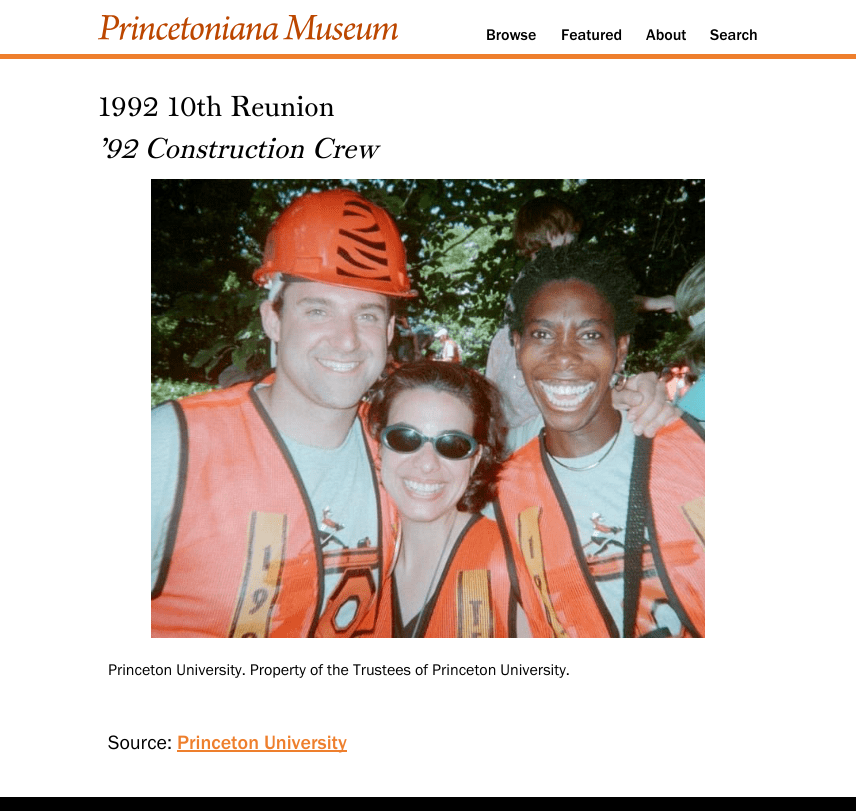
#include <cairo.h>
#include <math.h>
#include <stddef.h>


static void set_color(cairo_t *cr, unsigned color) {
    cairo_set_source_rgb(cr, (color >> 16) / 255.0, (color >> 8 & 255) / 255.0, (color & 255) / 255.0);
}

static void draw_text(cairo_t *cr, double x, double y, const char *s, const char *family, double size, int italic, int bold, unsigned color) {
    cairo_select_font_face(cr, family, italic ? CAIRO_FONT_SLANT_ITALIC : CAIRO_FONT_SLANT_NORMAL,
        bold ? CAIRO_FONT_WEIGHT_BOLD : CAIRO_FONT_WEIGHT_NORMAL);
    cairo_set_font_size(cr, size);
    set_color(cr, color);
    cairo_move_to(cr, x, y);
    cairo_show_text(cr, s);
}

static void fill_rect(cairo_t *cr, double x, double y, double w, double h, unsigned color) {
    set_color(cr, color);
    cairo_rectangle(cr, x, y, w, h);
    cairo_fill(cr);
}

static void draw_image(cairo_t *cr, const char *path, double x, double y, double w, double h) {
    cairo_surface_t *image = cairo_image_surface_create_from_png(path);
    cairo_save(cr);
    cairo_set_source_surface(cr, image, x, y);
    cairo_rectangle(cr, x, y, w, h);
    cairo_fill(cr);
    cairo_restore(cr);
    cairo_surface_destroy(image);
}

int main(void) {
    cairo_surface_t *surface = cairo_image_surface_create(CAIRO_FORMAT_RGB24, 856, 811);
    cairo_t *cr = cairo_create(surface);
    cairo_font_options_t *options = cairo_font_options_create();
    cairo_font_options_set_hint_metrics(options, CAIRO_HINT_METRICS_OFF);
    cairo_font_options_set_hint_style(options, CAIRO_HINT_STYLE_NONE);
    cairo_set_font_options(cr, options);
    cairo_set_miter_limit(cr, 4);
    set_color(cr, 0xFFFFFF);
    cairo_paint(cr);
    draw_image(cr, "assets/img1.png", 98, 15, 300, 25);
    draw_text(cr, 486, 40, "Browse", "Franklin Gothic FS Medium", 16, 0, 0, 0x000000);
    draw_text(cr, 561, 40, "Featured", "Franklin Gothic FS Medium", 16, 0, 0, 0x000000);
    draw_text(cr, 646, 40, "About", "Franklin Gothic FS Medium", 16, 0, 0, 0x000000);
    draw_text(cr, 710, 40, "Search", "Franklin Gothic FS Medium", 16, 0, 0, 0x000000);
    fill_rect(cr, 0, 54, 856, 5, 0xEE7F2D);
    draw_text(cr, 98, 116, "1992 10th Reunion", "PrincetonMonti", 28, 0, 0, 0x000000);
    draw_text(cr, 98, 158, "’92 Construction Crew", "PrincetonMonti", 28, 1, 0, 0x000000);
    draw_image(cr, "assets/img2.png", 151, 179, 554, 459);
    draw_text(cr, 108, 675, "Princeton University. Property of the Trustees of Princeton University.", "Franklin Gothic FS", 16, 0, 0, 0x000000);
    draw_text(cr, 108, 749, "Source:", "Franklin Gothic FS", 20, 0, 0, 0x000000);
    fill_rect(cr, 177, 750, 170, 2, 0xEE7F2D);
    draw_text(cr, 177, 749, "Princeton University", "Franklin Gothic FS Medium", 20, 0, 0, 0xEE7F2D);
    fill_rect(cr, 0, 797, 856, 14, 0x000000);
    cairo_surface_write_to_png(surface, "output.png");
    cairo_font_options_destroy(options);
    cairo_destroy(cr);
    cairo_surface_destroy(surface);
    return 0;
}
